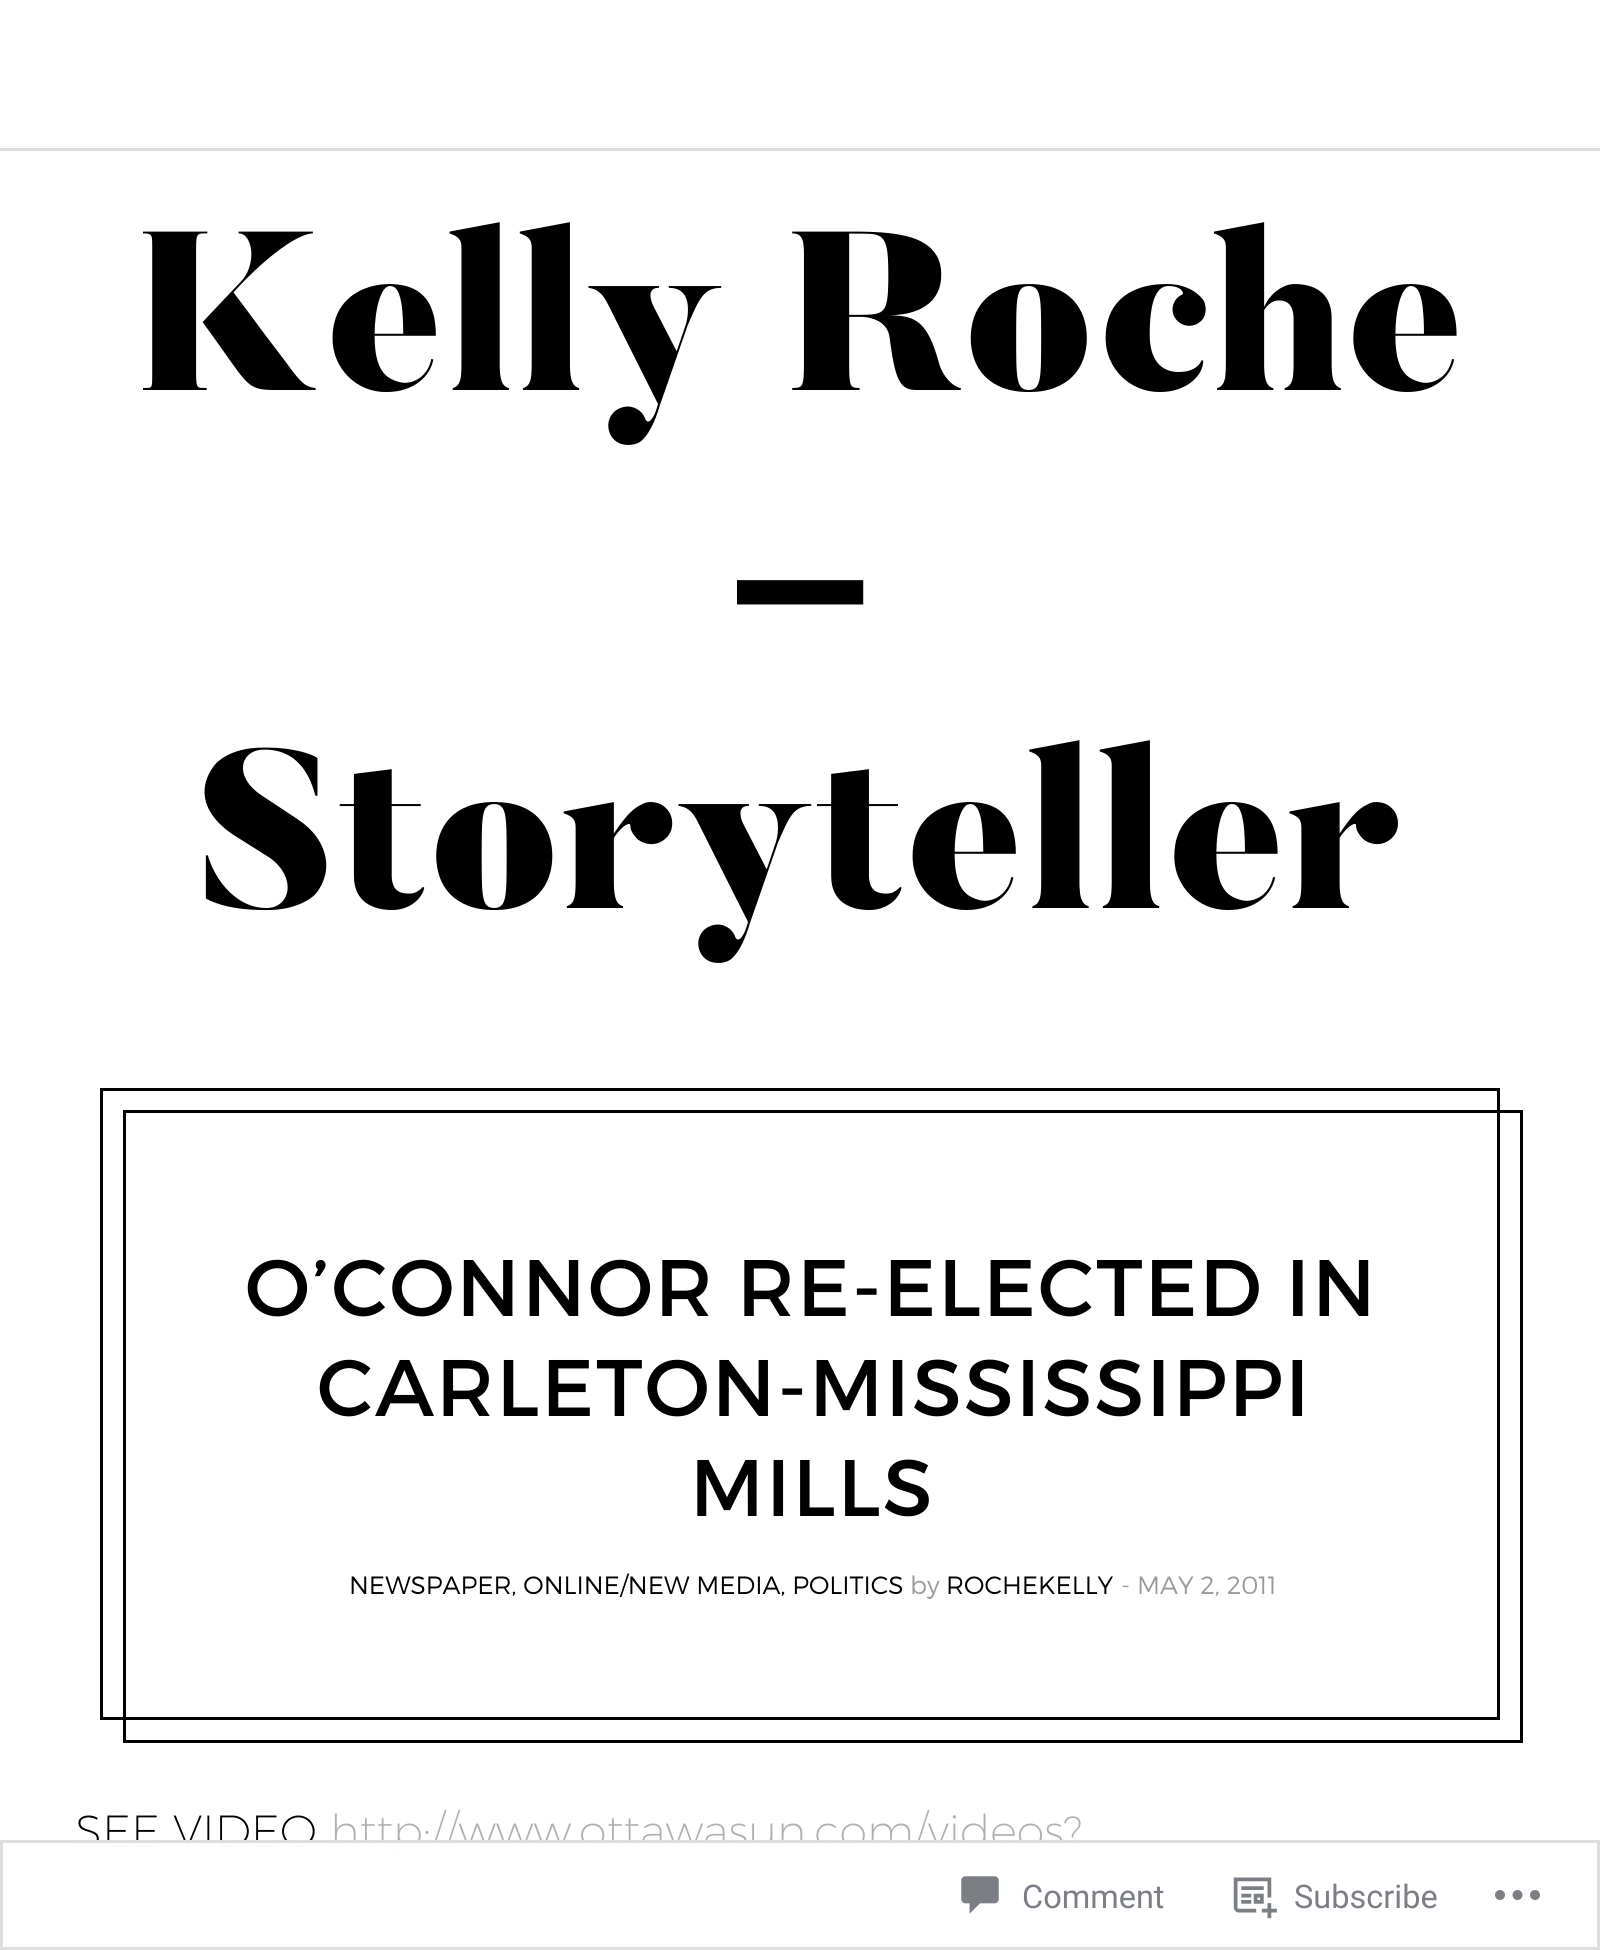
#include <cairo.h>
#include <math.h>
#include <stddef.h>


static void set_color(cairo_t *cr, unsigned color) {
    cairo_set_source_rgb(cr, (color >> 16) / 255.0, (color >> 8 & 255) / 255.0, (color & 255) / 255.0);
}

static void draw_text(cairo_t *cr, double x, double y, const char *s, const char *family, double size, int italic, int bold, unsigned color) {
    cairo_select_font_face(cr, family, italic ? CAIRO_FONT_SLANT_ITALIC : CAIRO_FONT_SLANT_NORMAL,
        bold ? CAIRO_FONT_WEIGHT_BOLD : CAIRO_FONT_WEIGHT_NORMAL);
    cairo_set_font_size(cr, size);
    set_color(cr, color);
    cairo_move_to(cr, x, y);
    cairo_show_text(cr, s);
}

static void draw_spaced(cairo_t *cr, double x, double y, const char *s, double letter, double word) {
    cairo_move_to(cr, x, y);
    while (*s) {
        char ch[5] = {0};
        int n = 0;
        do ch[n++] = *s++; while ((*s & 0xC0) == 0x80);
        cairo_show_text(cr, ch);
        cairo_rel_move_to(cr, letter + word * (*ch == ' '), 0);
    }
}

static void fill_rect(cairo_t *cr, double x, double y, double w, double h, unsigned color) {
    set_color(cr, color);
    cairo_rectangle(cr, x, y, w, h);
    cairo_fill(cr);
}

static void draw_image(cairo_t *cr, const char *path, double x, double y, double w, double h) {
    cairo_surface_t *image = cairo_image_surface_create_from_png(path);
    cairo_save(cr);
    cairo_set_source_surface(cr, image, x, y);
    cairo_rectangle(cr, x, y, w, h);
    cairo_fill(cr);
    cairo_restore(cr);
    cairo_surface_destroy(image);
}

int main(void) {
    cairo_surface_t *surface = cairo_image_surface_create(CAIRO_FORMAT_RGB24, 1600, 1950);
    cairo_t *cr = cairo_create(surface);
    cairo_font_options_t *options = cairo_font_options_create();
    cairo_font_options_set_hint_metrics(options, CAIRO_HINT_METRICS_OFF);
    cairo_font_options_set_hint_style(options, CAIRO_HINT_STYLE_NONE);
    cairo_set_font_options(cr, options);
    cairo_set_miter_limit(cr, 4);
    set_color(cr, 0xFFFFFF);
    cairo_paint(cr);
    fill_rect(cr, 0, 148, 1600, 3, 0xDDDDDD);
    draw_text(cr, 134, 390, "Kelly Roche", "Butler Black", 225, 0, 0, 0x000000);
    draw_text(cr, 737, 649, "–", "Butler Black", 225, 0, 0, 0x000000);
    draw_text(cr, 198, 908, "Storyteller", "Butler Black", 225, 0, 0, 0x000000);
    cairo_rectangle(cr, 101.5, 1089.5, 1397, 629);
    cairo_set_line_width(cr, 3);
    cairo_stroke(cr);
    cairo_rectangle(cr, 124.5, 1111.5, 1397, 630);
    cairo_stroke(cr);
    cairo_select_font_face(cr, "Montserrat", CAIRO_FONT_SLANT_NORMAL, CAIRO_FONT_WEIGHT_NORMAL);
    cairo_set_font_size(cr, 80);
    draw_spaced(cr, 245, 1316, "O’CONNOR RE-ELECTED IN", 2.3, -1);
    draw_spaced(cr, 317, 1416, "CARLETON-MISSISSIPPI", 2.3, 0);
    draw_spaced(cr, 690, 1516, "MILLS", 2.3, 0);
    draw_text(cr, 349, 1594, "NEWSPAPER, ONLINE/NEW MEDIA, POLITICS", "Montserrat Light", 25, 0, 0, 0x000000);
    draw_text(cr, 910, 1594, "by", "Montserrat Light", 25, 0, 0, 0x9A9A98);
    draw_text(cr, 946, 1594, "ROCHEKELLY", "Montserrat Light", 25, 0, 0, 0x000000);
    draw_text(cr, 1121, 1594, "- MAY 2, 2011", "Montserrat Light", 25, 0, 0, 0x9A9A98);
    draw_text(cr, 75, 1847, "SEE VIDEO", "Montserrat ExtraLight", 45, 0, 0, 0x000000);
    draw_text(cr, 330, 1847, "http://www.ottawasun.com/videos?", "Montserrat ExtraLight", 45, 0, 0, 0xAFAFAF);
    cairo_set_source_rgba(cr, 1, 1, 1, 0.98);
    cairo_rectangle(cr, 76, 1840, 998, 16);
    cairo_fill(cr);
    cairo_rectangle(cr, 1.5, 1841.5, 1597, 107);
    cairo_set_source_rgba(cr, 0.863, 0.863, 0.871, 0.98);
    cairo_stroke(cr);
    draw_image(cr, "assets/img1.png", 961, 1876, 38, 38);
    draw_text(cr, 1022, 1908, "Comment", "Roboto", 32.5, 0, 0, 0x7B7F85);
    draw_image(cr, "assets/img2.png", 1233, 1877, 44, 42);
    draw_text(cr, 1294, 1908, "Subscribe", "Roboto", 32.5, 0, 0, 0x7B7F85);
    draw_image(cr, "assets/img3.png", 1495, 1890, 45, 10);
    cairo_surface_write_to_png(surface, "output.png");
    cairo_font_options_destroy(options);
    cairo_destroy(cr);
    cairo_surface_destroy(surface);
    return 0;
}
